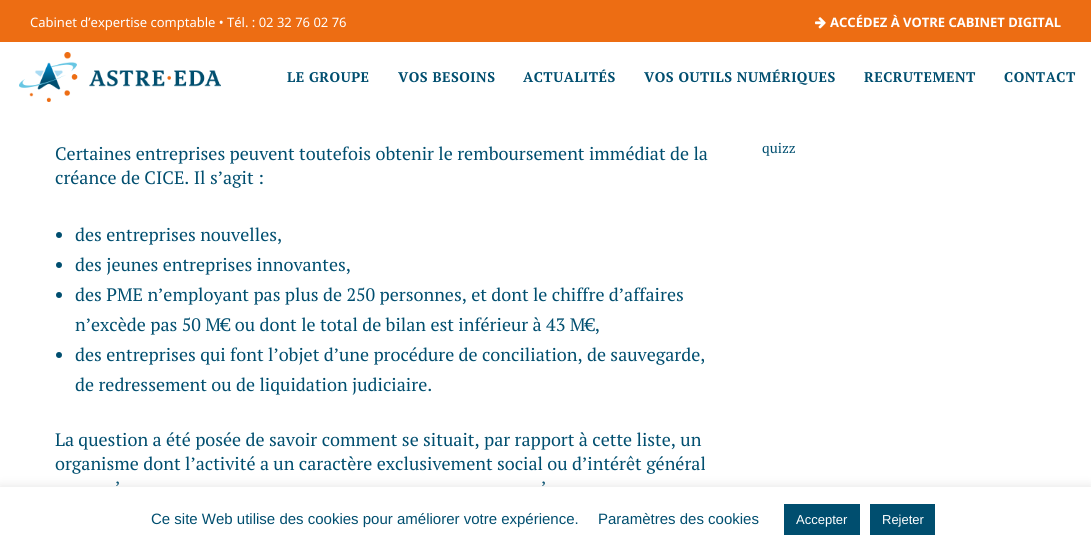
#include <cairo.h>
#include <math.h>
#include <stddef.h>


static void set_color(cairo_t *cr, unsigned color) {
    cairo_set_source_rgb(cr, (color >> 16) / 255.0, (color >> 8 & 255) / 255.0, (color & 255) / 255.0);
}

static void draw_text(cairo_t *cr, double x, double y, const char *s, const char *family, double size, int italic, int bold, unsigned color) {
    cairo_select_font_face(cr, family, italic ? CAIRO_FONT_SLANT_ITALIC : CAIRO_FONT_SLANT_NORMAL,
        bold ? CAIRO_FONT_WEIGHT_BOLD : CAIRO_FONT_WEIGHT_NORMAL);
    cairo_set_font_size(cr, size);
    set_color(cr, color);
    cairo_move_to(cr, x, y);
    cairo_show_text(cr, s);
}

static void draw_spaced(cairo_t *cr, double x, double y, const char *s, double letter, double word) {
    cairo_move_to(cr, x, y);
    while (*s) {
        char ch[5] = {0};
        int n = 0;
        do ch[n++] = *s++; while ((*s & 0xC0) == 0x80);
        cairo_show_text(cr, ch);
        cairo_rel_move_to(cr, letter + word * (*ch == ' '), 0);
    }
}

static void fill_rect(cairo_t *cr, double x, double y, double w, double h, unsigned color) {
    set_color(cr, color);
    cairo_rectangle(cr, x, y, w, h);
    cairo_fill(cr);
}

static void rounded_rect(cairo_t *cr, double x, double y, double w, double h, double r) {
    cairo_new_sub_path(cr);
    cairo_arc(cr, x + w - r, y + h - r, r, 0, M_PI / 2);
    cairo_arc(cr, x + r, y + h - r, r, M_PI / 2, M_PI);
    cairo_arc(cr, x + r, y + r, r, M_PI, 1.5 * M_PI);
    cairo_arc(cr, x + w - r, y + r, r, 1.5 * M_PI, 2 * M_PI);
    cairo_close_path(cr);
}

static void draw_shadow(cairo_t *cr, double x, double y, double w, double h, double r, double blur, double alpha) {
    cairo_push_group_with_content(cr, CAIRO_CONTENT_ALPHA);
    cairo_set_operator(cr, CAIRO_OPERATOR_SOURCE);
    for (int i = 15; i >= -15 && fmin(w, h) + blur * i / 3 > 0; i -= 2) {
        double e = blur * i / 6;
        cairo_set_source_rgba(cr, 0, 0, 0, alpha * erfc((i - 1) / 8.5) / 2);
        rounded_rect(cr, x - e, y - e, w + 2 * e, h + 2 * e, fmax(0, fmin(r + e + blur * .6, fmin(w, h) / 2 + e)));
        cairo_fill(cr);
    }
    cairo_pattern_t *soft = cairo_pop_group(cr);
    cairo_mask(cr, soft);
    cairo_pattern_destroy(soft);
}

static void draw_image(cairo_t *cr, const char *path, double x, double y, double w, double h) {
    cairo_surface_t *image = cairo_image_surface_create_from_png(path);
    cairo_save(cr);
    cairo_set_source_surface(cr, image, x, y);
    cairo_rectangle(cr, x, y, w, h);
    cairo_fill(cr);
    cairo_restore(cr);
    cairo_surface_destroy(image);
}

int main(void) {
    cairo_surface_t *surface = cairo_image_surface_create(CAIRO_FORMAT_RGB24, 1091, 552);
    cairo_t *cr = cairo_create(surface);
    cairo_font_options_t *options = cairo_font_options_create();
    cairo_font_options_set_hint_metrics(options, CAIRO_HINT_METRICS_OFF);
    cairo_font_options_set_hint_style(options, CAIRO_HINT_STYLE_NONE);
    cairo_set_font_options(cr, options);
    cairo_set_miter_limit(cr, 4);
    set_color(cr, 0xFFFFFF);
    cairo_paint(cr);
    fill_rect(cr, 0, 0, 1091, 42, 0xED6D13);
    draw_text(cr, 30, 27, "Cabinet d’expertise comptable • Tél. : 02 32 76 02 76", "Noto Sans", 13, 0, 0, 0xFFFFFF);
    draw_image(cr, "assets/img1.png", 815, 17, 11, 12);
    draw_text(cr, 830, 27, "ACCÉDEZ À VOTRE CABINET DIGITAL", "Noto Sans", 13, 0, 1, 0xFFFFFF);
    draw_image(cr, "assets/img2.png", 19, 52, 202, 50);
    cairo_select_font_face(cr, "PT Serif", CAIRO_FONT_SLANT_NORMAL, CAIRO_FONT_WEIGHT_BOLD);
    cairo_set_font_size(cr, 14);
    set_color(cr, 0x004E6F);
    draw_spaced(cr, 287, 82, "LE GROUPE", 0.5, 0);
    draw_spaced(cr, 398, 82, "VOS BESOINS", 0.5, 0);
    draw_spaced(cr, 523, 82, "ACTUALITÉS", 0.5, 0);
    draw_spaced(cr, 644, 82, "VOS OUTILS NUMÉRIQUES", 0.5, 0);
    draw_spaced(cr, 864, 82, "RECRUTEMENT", 0.5, 0);
    draw_spaced(cr, 1004, 82, "CONTACT", 0.5, 0);
    draw_text(cr, 55, 160, "Certaines entreprises peuvent toutefois obtenir le remboursement immédiat de la", "PT Serif", 18, 0, 0, 0x004E6F);
    draw_text(cr, 55, 184, "créance de CICE. Il s’agit :", "PT Serif", 18, 0, 0, 0x004E6F);
    cairo_new_path(cr);
    cairo_arc(cr, 59, 235, 3, 0, 2 * M_PI);
    cairo_fill(cr);
    draw_text(cr, 75, 241, "des entreprises nouvelles,", "PT Serif", 18, 0, 0, 0x004E6F);
    cairo_new_path(cr);
    cairo_arc(cr, 59, 265, 3, 0, 2 * M_PI);
    cairo_fill(cr);
    draw_text(cr, 75, 271, "des jeunes entreprises innovantes,", "PT Serif", 18, 0, 0, 0x004E6F);
    cairo_new_path(cr);
    cairo_arc(cr, 59, 295, 3, 0, 2 * M_PI);
    cairo_fill(cr);
    draw_text(cr, 75, 301, "des PME n’employant pas plus de 250 personnes, et dont le chiffre d’affaires", "PT Serif", 18, 0, 0, 0x004E6F);
    draw_text(cr, 75, 331, "n’excède pas 50 M€ ou dont le total de bilan est inférieur à 43 M€,", "PT Serif", 18, 0, 0, 0x004E6F);
    cairo_new_path(cr);
    cairo_arc(cr, 59, 355, 3, 0, 2 * M_PI);
    cairo_fill(cr);
    draw_text(cr, 75, 361, "des entreprises qui font l’objet d’une procédure de conciliation, de sauvegarde,", "PT Serif", 18, 0, 0, 0x004E6F);
    draw_text(cr, 75, 391, "de redressement ou de liquidation judiciaire.", "PT Serif", 18, 0, 0, 0x004E6F);
    draw_text(cr, 55, 446, "La question a été posée de savoir comment se situait, par rapport à cette liste, un", "PT Serif", 18, 0, 0, 0x004E6F);
    draw_text(cr, 55, 470, "organisme dont l’activité a un caractère exclusivement social ou d’intérêt général", "PT Serif", 18, 0, 0, 0x004E6F);
    draw_text(cr, 115, 494, "’", "PT Serif", 18, 0, 0, 0x004E6F);
    draw_text(cr, 541, 494, "’", "PT Serif", 18, 0, 0, 0x004E6F);
    draw_text(cr, 762, 153, "quizz", "PT Serif", 14, 0, 0, 0x004E6F);
    set_color(cr, 0xACABAB);
    draw_shadow(cr, 0, 486, 1091, 65, 0, 5, 0.3);
    fill_rect(cr, 0, 487, 1091, 65, 0xFFFFFF);
    draw_text(cr, 151, 524, "Ce site Web utilise des cookies pour améliorer votre expérience.", "Liberation Sans", 15, 0, 0, 0x004E6F);
    draw_text(cr, 598, 524, "Paramètres des cookies", "Liberation Sans", 15, 0, 0, 0x004E6F);
    fill_rect(cr, 784, 504, 76, 31, 0x004E6F);
    draw_text(cr, 796, 524, "Accepter", "Liberation Sans", 13, 0, 0, 0xFFFFFF);
    fill_rect(cr, 870, 504, 65, 31, 0x004E6F);
    draw_text(cr, 882, 524, "Rejeter", "Liberation Sans", 13, 0, 0, 0xFFFFFF);
    cairo_surface_write_to_png(surface, "output.png");
    cairo_font_options_destroy(options);
    cairo_destroy(cr);
    cairo_surface_destroy(surface);
    return 0;
}
